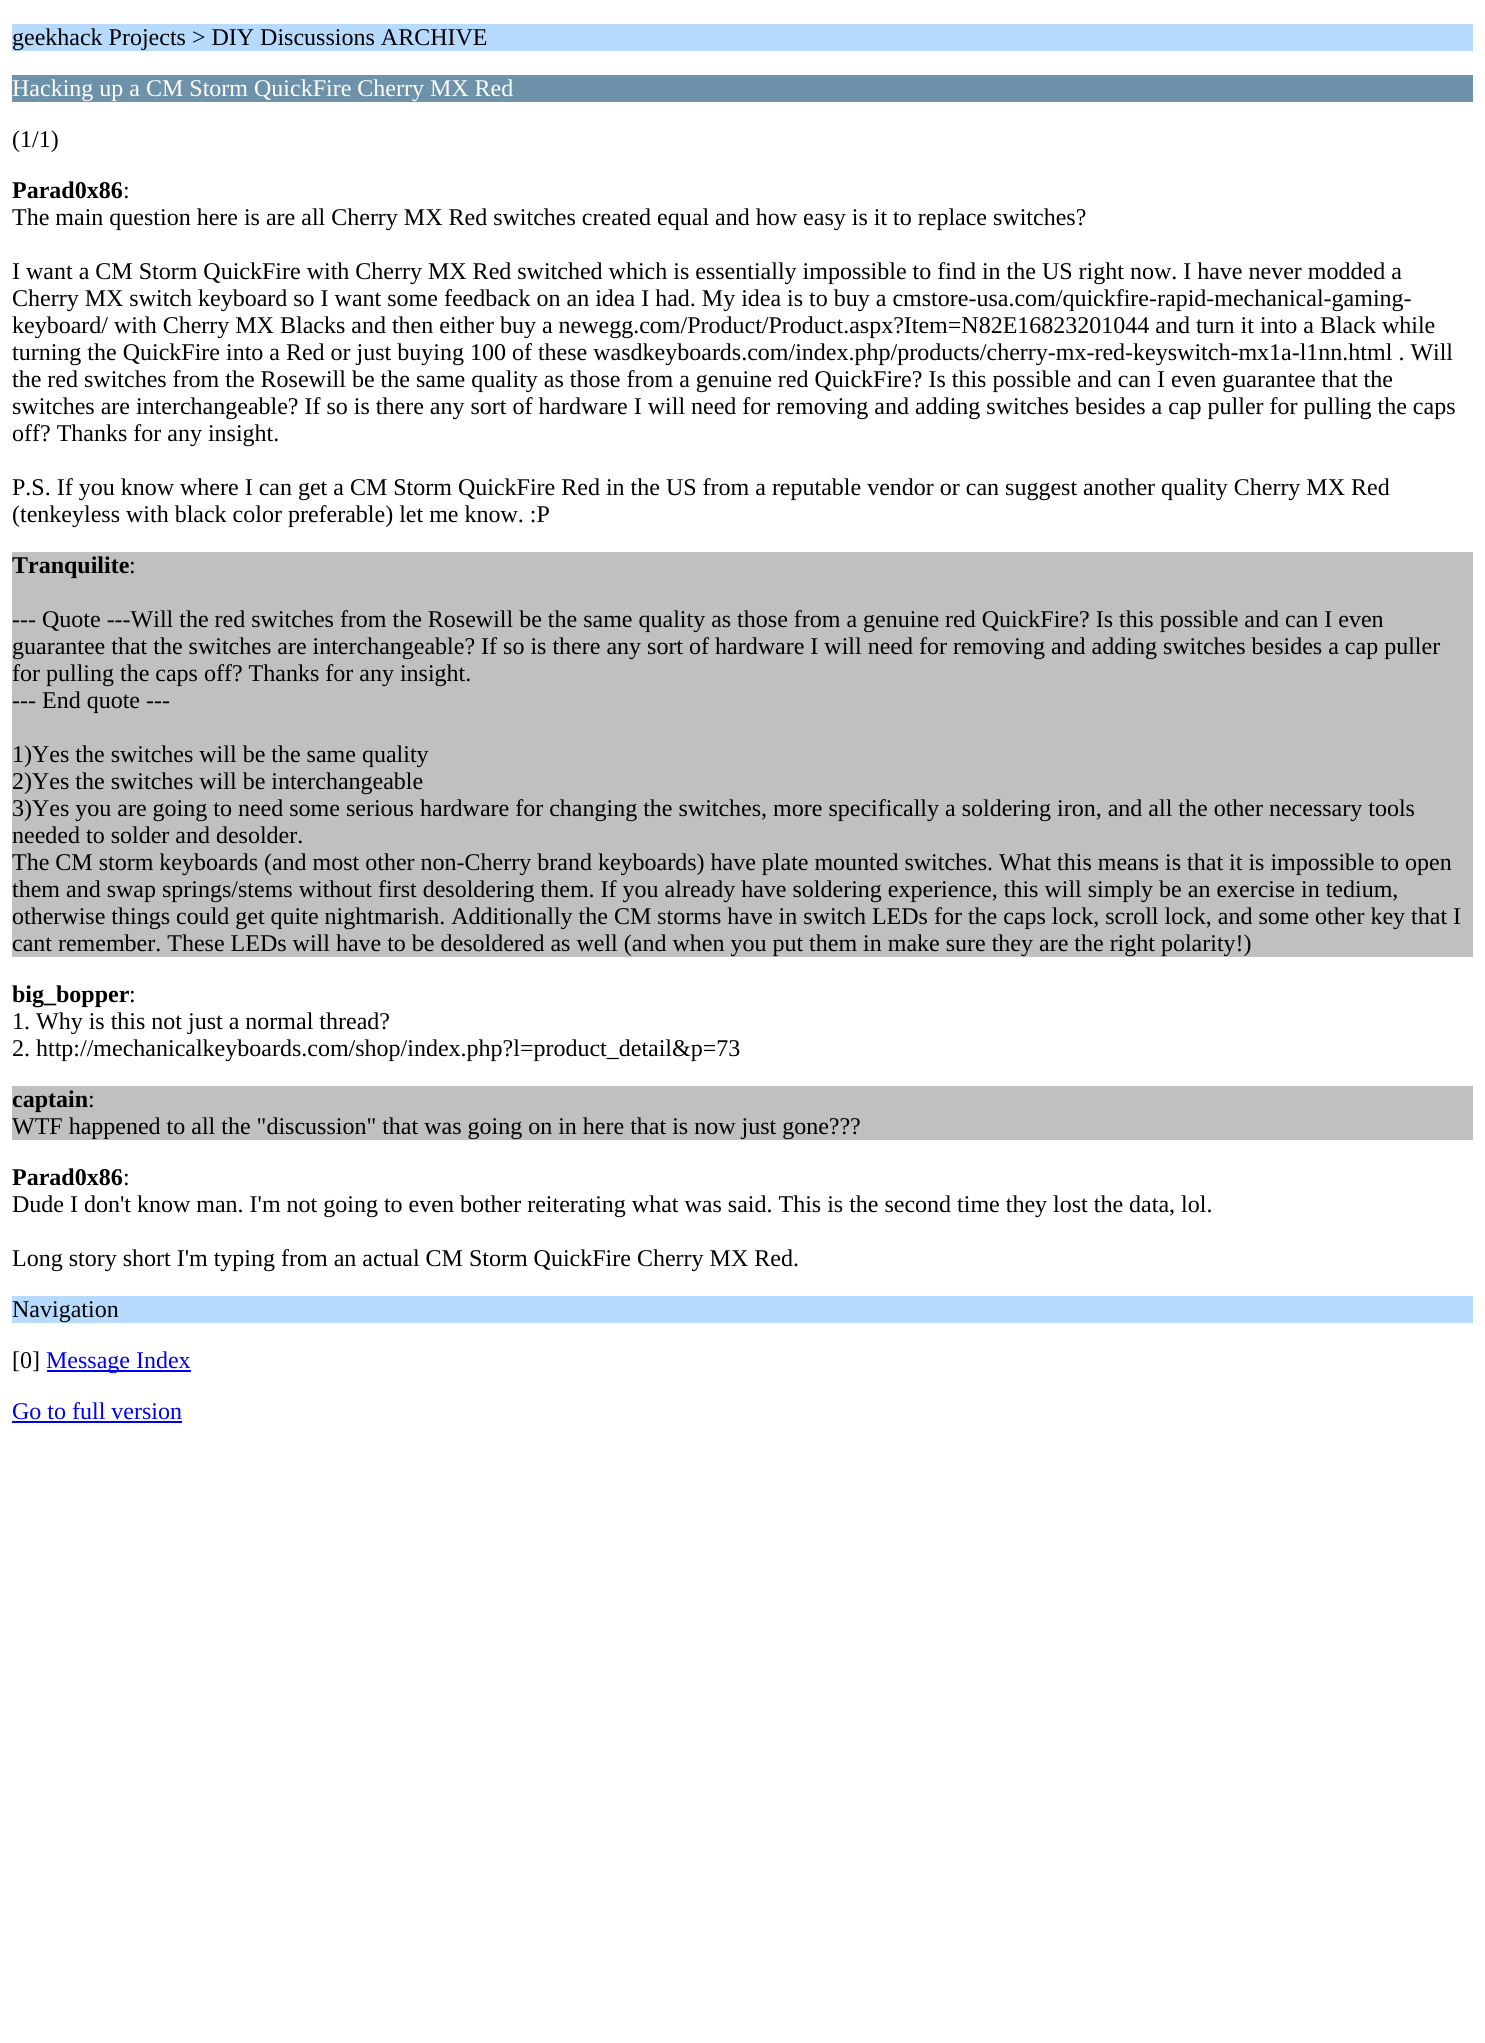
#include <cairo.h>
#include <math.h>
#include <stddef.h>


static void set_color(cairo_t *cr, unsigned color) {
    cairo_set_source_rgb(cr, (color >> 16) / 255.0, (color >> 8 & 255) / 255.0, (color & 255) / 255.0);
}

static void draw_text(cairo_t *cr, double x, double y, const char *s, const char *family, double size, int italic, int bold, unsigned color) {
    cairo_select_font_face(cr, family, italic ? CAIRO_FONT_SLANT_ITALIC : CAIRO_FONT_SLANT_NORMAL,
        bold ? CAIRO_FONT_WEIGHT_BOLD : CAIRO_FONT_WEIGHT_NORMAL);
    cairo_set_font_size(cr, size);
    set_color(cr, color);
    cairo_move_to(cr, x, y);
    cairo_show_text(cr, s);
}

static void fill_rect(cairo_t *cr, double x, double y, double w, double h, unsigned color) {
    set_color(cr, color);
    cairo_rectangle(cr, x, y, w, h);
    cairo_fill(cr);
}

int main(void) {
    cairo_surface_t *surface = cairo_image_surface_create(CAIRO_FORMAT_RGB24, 1485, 2043);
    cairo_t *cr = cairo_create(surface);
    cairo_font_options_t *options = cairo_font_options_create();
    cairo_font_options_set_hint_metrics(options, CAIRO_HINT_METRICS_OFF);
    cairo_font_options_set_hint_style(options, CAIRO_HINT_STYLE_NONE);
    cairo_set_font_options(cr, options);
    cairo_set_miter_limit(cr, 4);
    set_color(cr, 0xFFFFFF);
    cairo_paint(cr);
    fill_rect(cr, 12, 24, 1461, 27, 0xB6DBFF);
    draw_text(cr, 12, 45, "geekhack Projects > DIY Discussions ARCHIVE", "Liberation Serif", 24, 0, 0, 0x000000);
    fill_rect(cr, 12, 75, 1461, 27, 0x6D92AA);
    draw_text(cr, 12, 96, "Hacking up a CM Storm QuickFire Cherry MX Red", "Liberation Serif", 24, 0, 0, 0xFFFFFF);
    draw_text(cr, 12, 147, "(1/1)", "Liberation Serif", 24, 0, 0, 0x000000);
    draw_text(cr, 12, 198, "Parad0x86", "Liberation Serif", 24, 0, 1, 0x000000);
    draw_text(cr, 123, 198, ":", "Liberation Serif", 24, 0, 0, 0x000000);
    draw_text(cr, 12, 225, "The main question here is are all Cherry MX Red switches created equal and how easy is it to replace switches?", "Liberation Serif", 24, 0, 0, 0x000000);
    draw_text(cr, 12, 279, "I want a CM Storm QuickFire with Cherry MX Red switched which is essentially impossible to find in the US right now. I have never modded a", "Liberation Serif", 24, 0, 0, 0x000000);
    draw_text(cr, 12, 306, "Cherry MX switch keyboard so I want some feedback on an idea I had. My idea is to buy a cmstore-usa.com/quickfire-rapid-mechanical-gaming-", "Liberation Serif", 24, 0, 0, 0x000000);
    draw_text(cr, 12, 333, "keyboard/ with Cherry MX Blacks and then either buy a newegg.com/Product/Product.aspx?Item=N82E16823201044 and turn it into a Black while", "Liberation Serif", 24, 0, 0, 0x000000);
    draw_text(cr, 12, 360, "turning the QuickFire into a Red or just buying 100 of these wasdkeyboards.com/index.php/products/cherry-mx-red-keyswitch-mx1a-l1nn.html . Will", "Liberation Serif", 24, 0, 0, 0x000000);
    draw_text(cr, 12, 387, "the red switches from the Rosewill be the same quality as those from a genuine red QuickFire? Is this possible and can I even guarantee that the", "Liberation Serif", 24, 0, 0, 0x000000);
    draw_text(cr, 12, 414, "switches are interchangeable? If so is there any sort of hardware I will need for removing and adding switches besides a cap puller for pulling the caps", "Liberation Serif", 24, 0, 0, 0x000000);
    draw_text(cr, 12, 441, "off? Thanks for any insight.", "Liberation Serif", 24, 0, 0, 0x000000);
    draw_text(cr, 12, 495, "P.S. If you know where I can get a CM Storm QuickFire Red in the US from a reputable vendor or can suggest another quality Cherry MX Red", "Liberation Serif", 24, 0, 0, 0x000000);
    draw_text(cr, 12, 522, "(tenkeyless with black color preferable) let me know. :P", "Liberation Serif", 24, 0, 0, 0x000000);
    fill_rect(cr, 12, 552, 1461, 405, 0xC0C0C0);
    draw_text(cr, 12, 573, "Tranquilite", "Liberation Serif", 24, 0, 1, 0x000000);
    draw_text(cr, 129, 573, ":", "Liberation Serif", 24, 0, 0, 0x000000);
    draw_text(cr, 12, 627, "--- Quote ---Will the red switches from the Rosewill be the same quality as those from a genuine red QuickFire? Is this possible and can I even", "Liberation Serif", 24, 0, 0, 0x000000);
    draw_text(cr, 12, 654, "guarantee that the switches are interchangeable? If so is there any sort of hardware I will need for removing and adding switches besides a cap puller", "Liberation Serif", 24, 0, 0, 0x000000);
    draw_text(cr, 12, 681, "for pulling the caps off? Thanks for any insight.", "Liberation Serif", 24, 0, 0, 0x000000);
    draw_text(cr, 12, 708, "--- End quote ---", "Liberation Serif", 24, 0, 0, 0x000000);
    draw_text(cr, 12, 762, "1)Yes the switches will be the same quality", "Liberation Serif", 24, 0, 0, 0x000000);
    draw_text(cr, 12, 789, "2)Yes the switches will be interchangeable", "Liberation Serif", 24, 0, 0, 0x000000);
    draw_text(cr, 12, 816, "3)Yes you are going to need some serious hardware for changing the switches, more specifically a soldering iron, and all the other necessary tools", "Liberation Serif", 24, 0, 0, 0x000000);
    draw_text(cr, 12, 843, "needed to solder and desolder.", "Liberation Serif", 24, 0, 0, 0x000000);
    draw_text(cr, 12, 870, "The CM storm keyboards (and most other non-Cherry brand keyboards) have plate mounted switches. What this means is that it is impossible to open", "Liberation Serif", 24, 0, 0, 0x000000);
    draw_text(cr, 12, 897, "them and swap springs/stems without first desoldering them. If you already have soldering experience, this will simply be an exercise in tedium,", "Liberation Serif", 24, 0, 0, 0x000000);
    draw_text(cr, 12, 924, "otherwise things could get quite nightmarish. Additionally the CM storms have in switch LEDs for the caps lock, scroll lock, and some other key that I", "Liberation Serif", 24, 0, 0, 0x000000);
    draw_text(cr, 12, 951, "cant remember. These LEDs will have to be desoldered as well (and when you put them in make sure they are the right polarity!)", "Liberation Serif", 24, 0, 0, 0x000000);
    draw_text(cr, 12, 1002, "big_bopper", "Liberation Serif", 24, 0, 1, 0x000000);
    draw_text(cr, 129, 1002, ":", "Liberation Serif", 24, 0, 0, 0x000000);
    draw_text(cr, 12, 1029, "1. Why is this not just a normal thread?", "Liberation Serif", 24, 0, 0, 0x000000);
    draw_text(cr, 12, 1056, "2. http://mechanicalkeyboards.com/shop/index.php?l=product_detail&p=73", "Liberation Serif", 24, 0, 0, 0x000000);
    fill_rect(cr, 12, 1086, 1461, 54, 0xC0C0C0);
    draw_text(cr, 12, 1107, "captain", "Liberation Serif", 24, 0, 1, 0x000000);
    draw_text(cr, 88, 1107, ":", "Liberation Serif", 24, 0, 0, 0x000000);
    draw_text(cr, 12, 1134, "WTF happened to all the \"discussion\" that was going on in here that is now just gone?\077?", "Liberation Serif", 24, 0, 0, 0x000000);
    draw_text(cr, 12, 1185, "Parad0x86", "Liberation Serif", 24, 0, 1, 0x000000);
    draw_text(cr, 123, 1185, ":", "Liberation Serif", 24, 0, 0, 0x000000);
    draw_text(cr, 12, 1212, "Dude I don't know man. I'm not going to even bother reiterating what was said. This is the second time they lost the data, lol.", "Liberation Serif", 24, 0, 0, 0x000000);
    draw_text(cr, 12, 1266, "Long story short I'm typing from an actual CM Storm QuickFire Cherry MX Red.", "Liberation Serif", 24, 0, 0, 0x000000);
    fill_rect(cr, 12, 1296, 1461, 27, 0xB6DBFF);
    draw_text(cr, 12, 1317, "Navigation", "Liberation Serif", 24, 0, 0, 0x000000);
    draw_text(cr, 12, 1368, "[0]", "Liberation Serif", 24, 0, 0, 0x000000);
    fill_rect(cr, 47, 1370, 144, 2, 0x0000EE);
    draw_text(cr, 46, 1368, "Message Index", "Liberation Serif", 24, 0, 0, 0x0000EE);
    draw_text(cr, 12, 1419, "Go to full version", "Liberation Serif", 24, 0, 0, 0x0000EE);
    fill_rect(cr, 12, 1421, 170, 2, 0x0000EE);
    cairo_surface_write_to_png(surface, "output.png");
    cairo_font_options_destroy(options);
    cairo_destroy(cr);
    cairo_surface_destroy(surface);
    return 0;
}
